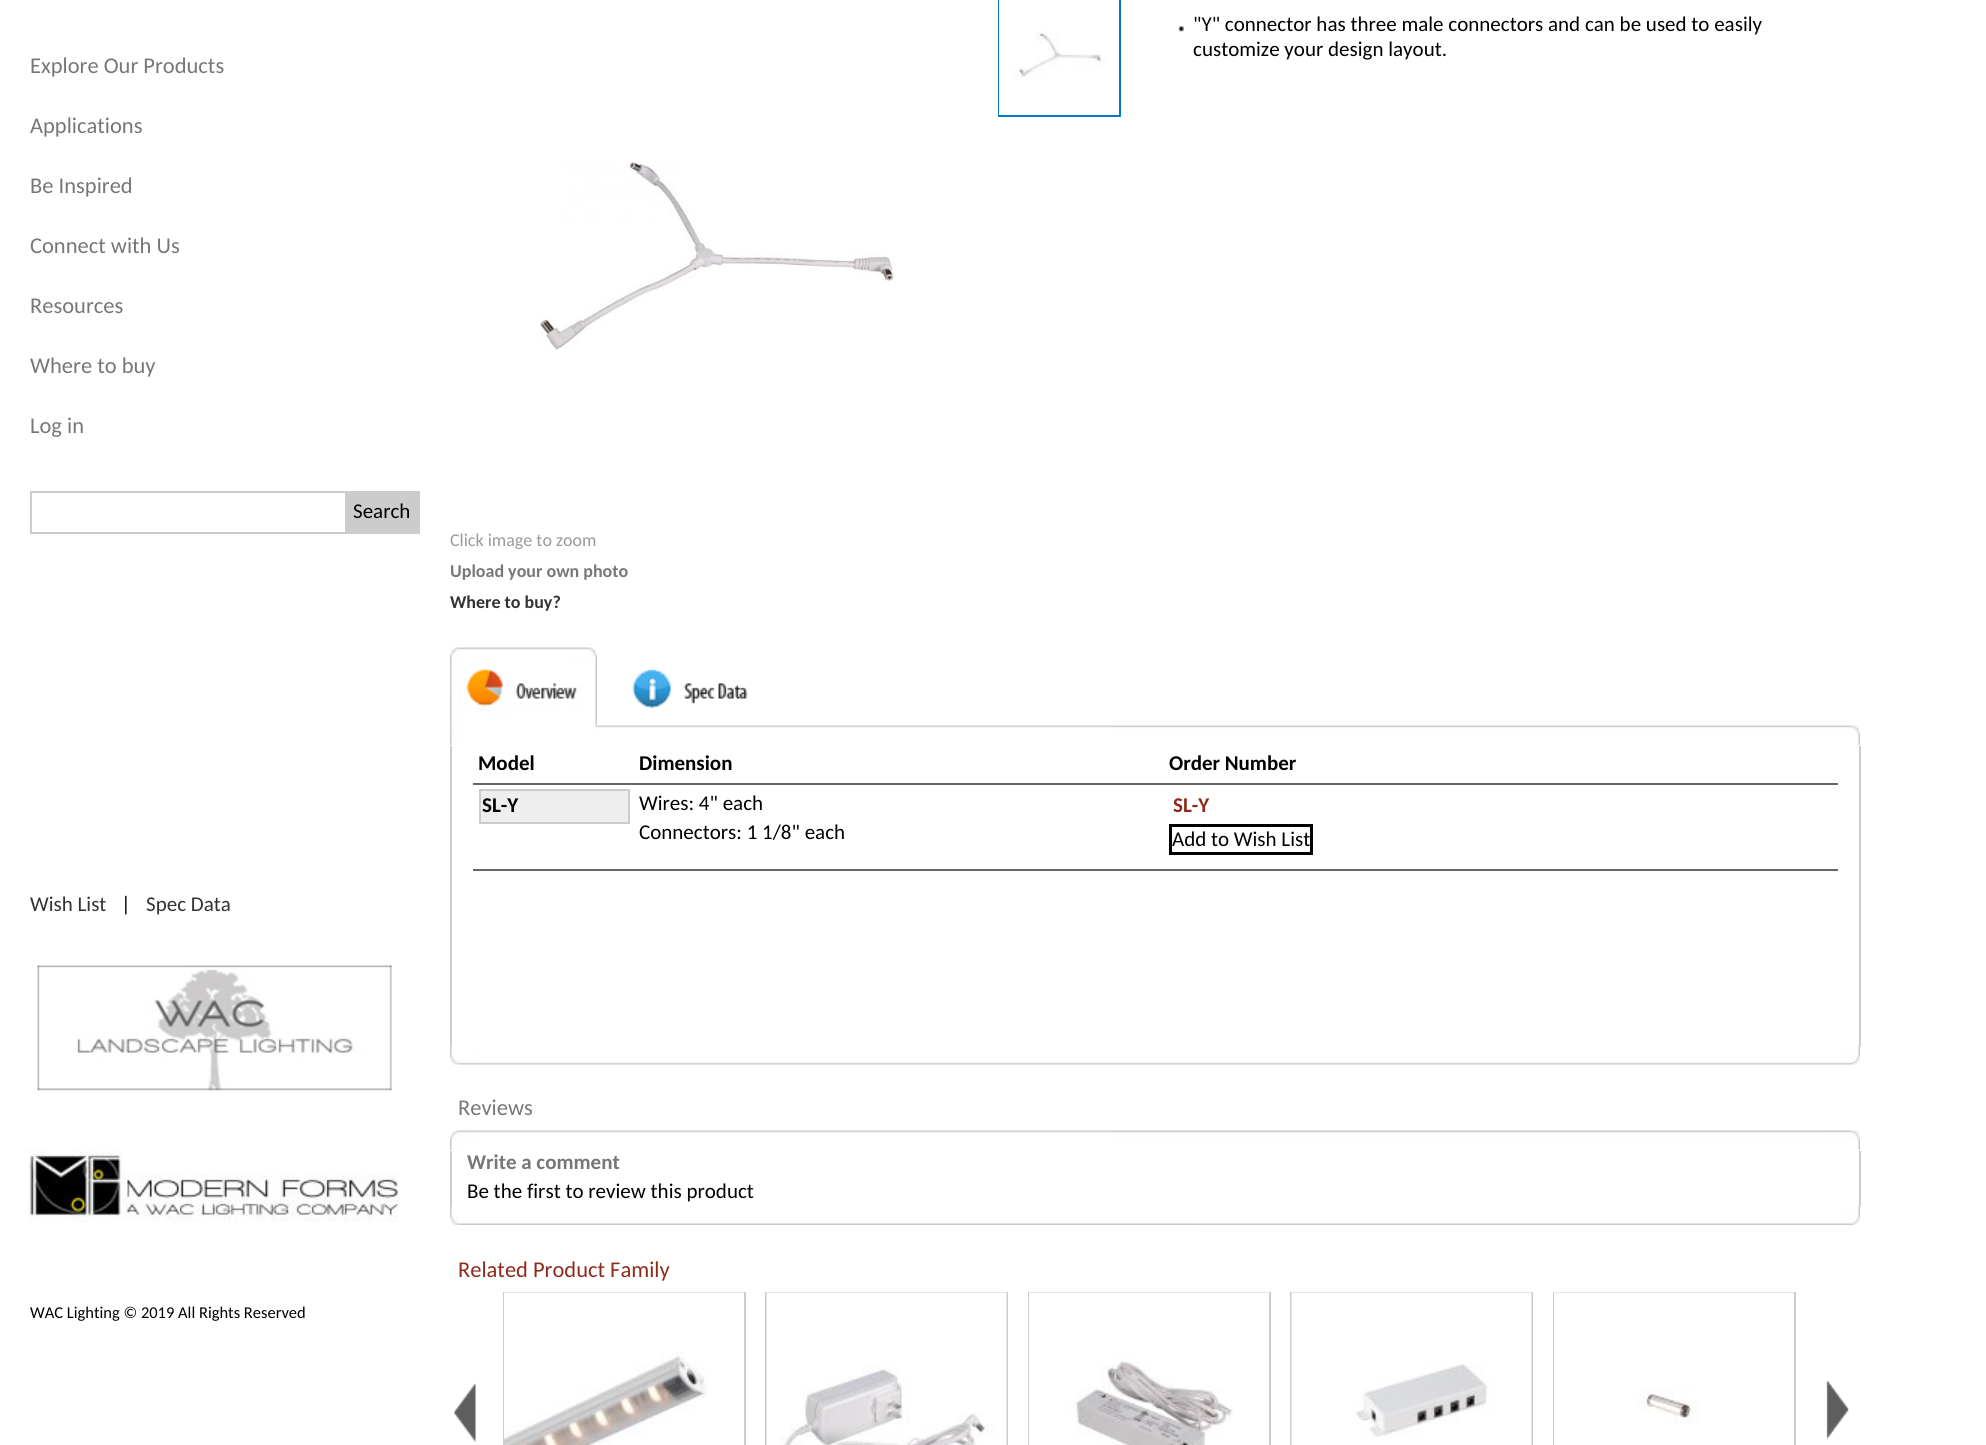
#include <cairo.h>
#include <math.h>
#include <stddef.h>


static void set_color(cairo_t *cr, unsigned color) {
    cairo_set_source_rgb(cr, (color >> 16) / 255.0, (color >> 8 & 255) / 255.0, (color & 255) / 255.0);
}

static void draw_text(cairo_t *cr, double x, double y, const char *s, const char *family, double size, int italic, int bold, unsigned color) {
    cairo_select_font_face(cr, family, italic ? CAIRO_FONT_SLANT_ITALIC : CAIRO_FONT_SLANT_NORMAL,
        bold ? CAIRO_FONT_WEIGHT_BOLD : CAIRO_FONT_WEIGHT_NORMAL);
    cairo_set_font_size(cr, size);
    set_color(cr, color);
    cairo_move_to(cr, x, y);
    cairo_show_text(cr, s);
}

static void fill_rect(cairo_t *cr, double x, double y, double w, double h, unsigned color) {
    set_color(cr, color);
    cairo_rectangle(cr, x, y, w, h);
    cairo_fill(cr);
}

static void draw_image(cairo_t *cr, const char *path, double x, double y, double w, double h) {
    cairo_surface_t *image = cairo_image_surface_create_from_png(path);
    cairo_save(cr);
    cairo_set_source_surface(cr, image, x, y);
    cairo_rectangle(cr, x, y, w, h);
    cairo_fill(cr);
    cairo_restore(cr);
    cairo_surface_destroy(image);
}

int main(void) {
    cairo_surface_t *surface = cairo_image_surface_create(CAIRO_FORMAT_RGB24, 1986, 1445);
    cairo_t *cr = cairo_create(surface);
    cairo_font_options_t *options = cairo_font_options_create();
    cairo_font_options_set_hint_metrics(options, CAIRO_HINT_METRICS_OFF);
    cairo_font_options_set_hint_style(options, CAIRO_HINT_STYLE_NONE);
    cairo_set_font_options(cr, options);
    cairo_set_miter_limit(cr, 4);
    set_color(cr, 0xFFFFFF);
    cairo_paint(cr);
    draw_text(cr, 30, 73, "Explore Our Products", "Carlito", 22.5, 0, 0, 0x777777);
    draw_text(cr, 30, 133, "Applications", "Carlito", 22.5, 0, 0, 0x777777);
    draw_text(cr, 30, 193, "Be Inspired", "Carlito", 22.5, 0, 0, 0x777777);
    draw_text(cr, 30, 253, "Connect with Us", "Carlito", 22.5, 0, 0, 0x777777);
    draw_text(cr, 30, 313, "Resources", "Carlito", 22.5, 0, 0, 0x777777);
    draw_text(cr, 30, 373, "Where to buy", "Carlito", 22.5, 0, 0, 0x777777);
    draw_text(cr, 30, 433, "Log in", "Carlito", 22.5, 0, 0, 0x777777);
    cairo_rectangle(cr, 31, 492, 388, 41);
    set_color(cr, 0xCCCCCC);
    cairo_stroke(cr);
    fill_rect(cr, 345, 493, 73, 39, 0xCCCCCC);
    draw_text(cr, 353, 518, "Search", "Carlito", 21, 0, 0, 0x000000);
    draw_text(cr, 30, 911, "Wish List", "Carlito", 21, 0, 0, 0x333333);
    draw_text(cr, 121, 911, "|", "Carlito", 21, 0, 0, 0x000000);
    draw_text(cr, 146, 911, "Spec Data", "Carlito", 21, 0, 0, 0x333333);
    draw_image(cr, "assets/img1.png", 37, 965, 355, 126);
    draw_image(cr, "assets/img2.png", 28, 1150, 371, 72);
    draw_text(cr, 30, 1318, "WAC Lighting © 2019 All Rights Reserved", "Carlito", 16.5, 0, 0, 0x000000);
    cairo_rectangle(cr, 999, -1, 121, 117);
    set_color(cr, 0x027AC6);
    cairo_stroke(cr);
    draw_image(cr, "assets/img3.png", 999, 0, 108, 115);
    draw_image(cr, "assets/img4.png", 1178, 26, 6, 6);
    draw_text(cr, 1193, 31, "\"Y\" connector has three male connectors and can be used to easily", "Carlito", 21, 0, 0, 0x000000);
    draw_text(cr, 1193, 56, "customize your design layout.", "Carlito", 21, 0, 0, 0x000000);
    draw_image(cr, "assets/img5.png", 540, 161, 356, 189);
    draw_text(cr, 450, 546, "Click image to zoom", "Carlito", 18, 0, 0, 0x999999);
    draw_text(cr, 450, 577, "Upload your own photo", "Carlito", 18, 0, 1, 0x777777);
    draw_text(cr, 450, 608, "Where to buy?", "Carlito", 18, 0, 1, 0x333333);
    draw_image(cr, "assets/img6.png", 450, 647, 147, 98);
    draw_image(cr, "assets/img7.png", 462, 665, 115, 43);
    draw_image(cr, "assets/img8.png", 632, 668, 116, 40);
    draw_image(cr, "assets/img9.png", 597, 725, 1263, 20);
    fill_rect(cr, 1859, 746, 2, 300, 0xCCCCCC);
    fill_rect(cr, 450, 746, 2, 300, 0xCCCCCC);
    fill_rect(cr, 473, 783, 1365, 2, 0x666666);
    draw_text(cr, 478, 770, "Model", "Carlito", 21, 0, 1, 0x000000);
    draw_text(cr, 639, 770, "Dimension", "Carlito", 21, 0, 1, 0x000000);
    draw_text(cr, 1169, 770, "Order Number", "Carlito", 21, 0, 1, 0x000000);
    fill_rect(cr, 473, 869, 1365, 2, 0x666666);
    set_color(cr, 0xEEEEEE);
    cairo_rectangle(cr, 480, 790, 149, 33);
    cairo_fill_preserve(cr);
    set_color(cr, 0xCCCCCC);
    cairo_stroke(cr);
    draw_text(cr, 482, 812, "SL-Y", "Carlito", 21, 0, 1, 0x000000);
    draw_text(cr, 639, 810, "Wires: 4\" each", "Carlito", 21, 0, 0, 0x000000);
    draw_text(cr, 639, 839, "Connectors: 1 1/8\" each", "Carlito", 21, 0, 0, 0x000000);
    draw_text(cr, 1173, 812, "SL-Y", "Carlito", 21, 0, 1, 0x8E2A1B);
    cairo_rectangle(cr, 1170.5, 825.5, 141, 28);
    set_color(cr, 0x000000);
    cairo_set_line_width(cr, 3);
    cairo_stroke(cr);
    draw_text(cr, 1172, 846, "Add to Wish List", "Carlito", 21, 0, 0, 0x000000);
    draw_image(cr, "assets/img10.png", 450, 1045, 1410, 20);
    draw_text(cr, 458, 1115, "Reviews", "Carlito", 22.5, 0, 0, 0x777777);
    draw_image(cr, "assets/img11.png", 450, 1130, 1410, 20);
    fill_rect(cr, 1859, 1151, 2, 55, 0xCCCCCC);
    fill_rect(cr, 450, 1151, 2, 55, 0xCCCCCC);
    draw_text(cr, 467, 1169, "Write a comment", "Carlito", 21, 0, 1, 0x777777);
    draw_text(cr, 467, 1198, "Be the first to review this product", "Carlito", 21, 0, 0, 0x000000);
    draw_image(cr, "assets/img12.png", 450, 1205, 1410, 20);
    draw_text(cr, 458, 1277, "Related Product Family", "Carlito", 22.5, 0, 0, 0x8E2A1B);
    draw_image(cr, "assets/img13.png", 454, 1383, 22, 59);
    cairo_rectangle(cr, 504, 1293, 241, 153);
    set_color(cr, 0xCCCCCC);
    cairo_set_line_width(cr, 2);
    cairo_stroke(cr);
    draw_image(cr, "assets/img14.png", 504, 1292, 240, 153);
    cairo_rectangle(cr, 766, 1293, 241, 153);
    cairo_stroke(cr);
    draw_image(cr, "assets/img15.png", 766, 1292, 241, 153);
    cairo_rectangle(cr, 1029, 1293, 241, 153);
    cairo_stroke(cr);
    draw_image(cr, "assets/img16.png", 1029, 1292, 240, 153);
    cairo_rectangle(cr, 1291, 1293, 241, 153);
    cairo_stroke(cr);
    draw_image(cr, "assets/img17.png", 1291, 1292, 241, 153);
    cairo_rectangle(cr, 1554, 1293, 241, 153);
    cairo_stroke(cr);
    draw_image(cr, "assets/img18.png", 1554, 1292, 240, 153);
    draw_image(cr, "assets/img19.png", 1826, 1380, 23, 59);
    cairo_surface_write_to_png(surface, "output.png");
    cairo_font_options_destroy(options);
    cairo_destroy(cr);
    cairo_surface_destroy(surface);
    return 0;
}
